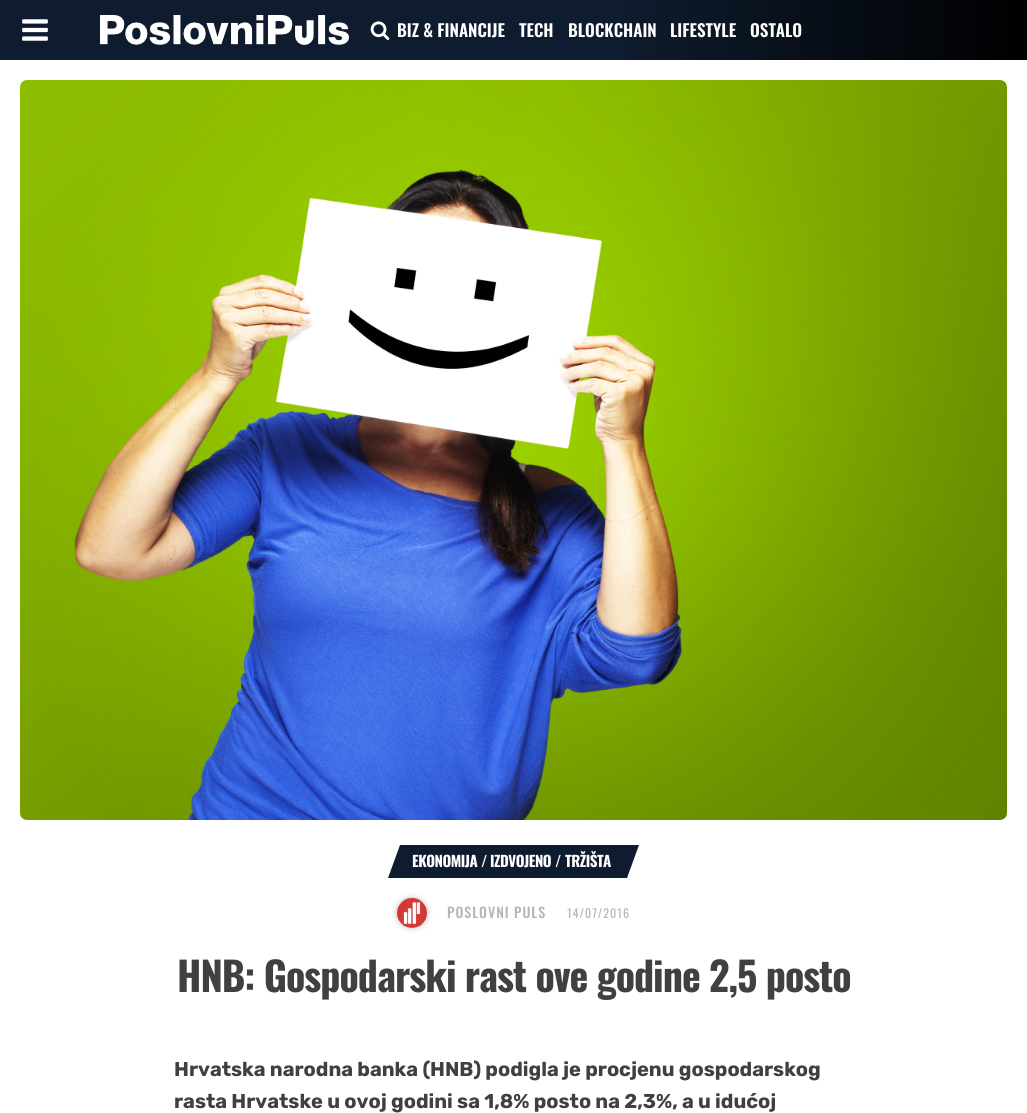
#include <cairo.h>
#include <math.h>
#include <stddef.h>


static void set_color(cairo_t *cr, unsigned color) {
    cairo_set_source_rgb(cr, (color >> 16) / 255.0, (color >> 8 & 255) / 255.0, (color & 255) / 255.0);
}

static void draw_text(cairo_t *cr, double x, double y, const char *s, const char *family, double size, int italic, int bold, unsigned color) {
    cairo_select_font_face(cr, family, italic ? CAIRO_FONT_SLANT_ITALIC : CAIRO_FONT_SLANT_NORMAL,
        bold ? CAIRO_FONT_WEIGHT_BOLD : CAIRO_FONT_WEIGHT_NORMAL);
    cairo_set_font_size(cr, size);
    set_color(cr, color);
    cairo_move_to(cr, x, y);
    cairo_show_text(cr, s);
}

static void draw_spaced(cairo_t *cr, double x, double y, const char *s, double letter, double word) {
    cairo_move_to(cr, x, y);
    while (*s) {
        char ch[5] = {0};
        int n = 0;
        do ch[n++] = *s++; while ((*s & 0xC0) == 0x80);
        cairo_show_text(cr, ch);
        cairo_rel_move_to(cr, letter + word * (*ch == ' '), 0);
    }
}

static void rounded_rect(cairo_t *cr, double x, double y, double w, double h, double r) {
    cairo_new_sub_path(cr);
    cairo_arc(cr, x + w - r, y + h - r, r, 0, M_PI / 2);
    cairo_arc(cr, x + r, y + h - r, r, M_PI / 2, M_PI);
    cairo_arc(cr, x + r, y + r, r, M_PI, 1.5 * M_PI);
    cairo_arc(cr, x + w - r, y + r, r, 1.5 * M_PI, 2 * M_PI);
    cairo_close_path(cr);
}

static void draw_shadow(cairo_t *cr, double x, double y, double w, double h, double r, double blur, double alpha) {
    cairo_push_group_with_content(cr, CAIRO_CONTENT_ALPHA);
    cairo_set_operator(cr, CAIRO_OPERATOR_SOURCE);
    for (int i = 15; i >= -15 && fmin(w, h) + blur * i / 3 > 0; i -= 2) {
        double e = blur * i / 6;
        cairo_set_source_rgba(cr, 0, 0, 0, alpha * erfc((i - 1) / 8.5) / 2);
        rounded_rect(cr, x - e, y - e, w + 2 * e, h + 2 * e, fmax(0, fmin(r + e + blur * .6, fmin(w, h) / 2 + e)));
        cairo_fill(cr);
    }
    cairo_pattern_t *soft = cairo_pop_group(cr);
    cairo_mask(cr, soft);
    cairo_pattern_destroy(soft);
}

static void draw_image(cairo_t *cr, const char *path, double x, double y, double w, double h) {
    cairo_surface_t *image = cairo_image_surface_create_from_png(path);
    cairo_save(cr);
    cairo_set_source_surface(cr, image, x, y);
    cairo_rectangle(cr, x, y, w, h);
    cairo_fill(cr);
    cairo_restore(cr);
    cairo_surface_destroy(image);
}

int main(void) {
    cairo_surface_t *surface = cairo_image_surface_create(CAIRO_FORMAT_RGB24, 1027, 1113);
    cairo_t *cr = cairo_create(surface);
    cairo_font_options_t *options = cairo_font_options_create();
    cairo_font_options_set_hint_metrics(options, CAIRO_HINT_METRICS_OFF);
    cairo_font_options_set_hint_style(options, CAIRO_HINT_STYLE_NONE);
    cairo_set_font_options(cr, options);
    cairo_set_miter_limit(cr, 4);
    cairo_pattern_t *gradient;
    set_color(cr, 0xFFFFFF);
    cairo_paint(cr);
    gradient = cairo_pattern_create_linear(0, 30, 1027, 30);
    cairo_pattern_add_color_stop_rgba(gradient, 0.6, 0.059, 0.11, 0.184, 1);
    cairo_pattern_add_color_stop_rgba(gradient, 1, 0, 0, 0, 1);
    cairo_set_source(cr, gradient);
    cairo_pattern_destroy(gradient);
    cairo_rectangle(cr, 0, 0, 1027, 60);
    cairo_fill(cr);
    draw_image(cr, "assets/img1.png", 22, 19, 26, 22);
    draw_image(cr, "assets/img2.png", 100, 15, 249, 30);
    draw_image(cr, "assets/img3.png", 370, 21, 20, 19);
    draw_text(cr, 397, 37, "BIZ & FINANCIJE", "Oswald SemiBold", 17, 0, 0, 0xFFFFFF);
    draw_text(cr, 519, 37, "TECH", "Oswald SemiBold", 17, 0, 0, 0xFFFFFF);
    draw_text(cr, 568, 37, "BLOCKCHAIN", "Oswald SemiBold", 17, 0, 0, 0xFFFFFF);
    draw_text(cr, 670, 37, "LIFESTYLE", "Oswald SemiBold", 17, 0, 0, 0xFFFFFF);
    draw_text(cr, 750, 37, "OSTALO", "Oswald SemiBold", 17, 0, 0, 0xFFFFFF);
    draw_image(cr, "assets/img4.png", 20, 80, 987, 740);
    set_color(cr, 0x0F1C2F);
    cairo_new_path(cr);
    cairo_move_to(cr, 400, 845);
    cairo_line_to(cr, 639, 845);
    cairo_line_to(cr, 627, 878);
    cairo_line_to(cr, 388, 878);
    cairo_close_path(cr);
    cairo_fill(cr);
    cairo_select_font_face(cr, "Oswald", CAIRO_FONT_SLANT_NORMAL, CAIRO_FONT_WEIGHT_BOLD);
    cairo_set_font_size(cr, 15);
    set_color(cr, 0xFFFFFF);
    draw_spaced(cr, 412, 867, "EKONOMIJA", -0.5, 0);
    draw_text(cr, 481, 867, "/", "Oswald", 15, 0, 1, 0xFFFFFF);
    draw_spaced(cr, 490, 867, "IZDVOJENO", -0.5, 0);
    draw_text(cr, 555, 867, "/", "Oswald", 15, 0, 1, 0xFFFFFF);
    draw_spaced(cr, 565, 867, "TRŽIŠTA", -0.5, 0);
    set_color(cr, 0xD1D1D1);
    draw_shadow(cr, 396, 897, 32, 32, 16, 2.5, 1);
    draw_image(cr, "assets/img5.png", 397, 898, 30, 30);
    cairo_select_font_face(cr, "Oswald Medium", CAIRO_FONT_SLANT_NORMAL, CAIRO_FONT_WEIGHT_NORMAL);
    cairo_set_font_size(cr, 14);
    set_color(cr, 0xB5B5B5);
    draw_spaced(cr, 447, 918, "POSLOVNI PULS", 1, 0);
    cairo_select_font_face(cr, "Oswald", CAIRO_FONT_SLANT_NORMAL, CAIRO_FONT_WEIGHT_NORMAL);
    cairo_set_font_size(cr, 12);
    draw_spaced(cr, 567, 918, "14/07/2016", 1, 0);
    cairo_select_font_face(cr, "Oswald", CAIRO_FONT_SLANT_NORMAL, CAIRO_FONT_WEIGHT_BOLD);
    cairo_set_font_size(cr, 40);
    set_color(cr, 0x404040);
    draw_spaced(cr, 177, 992, "HNB: Gospodarski rast ove godine 2,5 posto", -1, 0);
    draw_text(cr, 174, 1076, "Hrvatska narodna banka (HNB) podigla je procjenu gospodarskog", "Rubik", 20, 0, 1, 0x404040);
    draw_text(cr, 174, 1108, "rasta Hrvatske u ovoj godini sa 1,8% posto na 2,3%, a u idućoj", "Rubik", 20, 0, 1, 0x404040);
    cairo_surface_write_to_png(surface, "output.png");
    cairo_font_options_destroy(options);
    cairo_destroy(cr);
    cairo_surface_destroy(surface);
    return 0;
}
